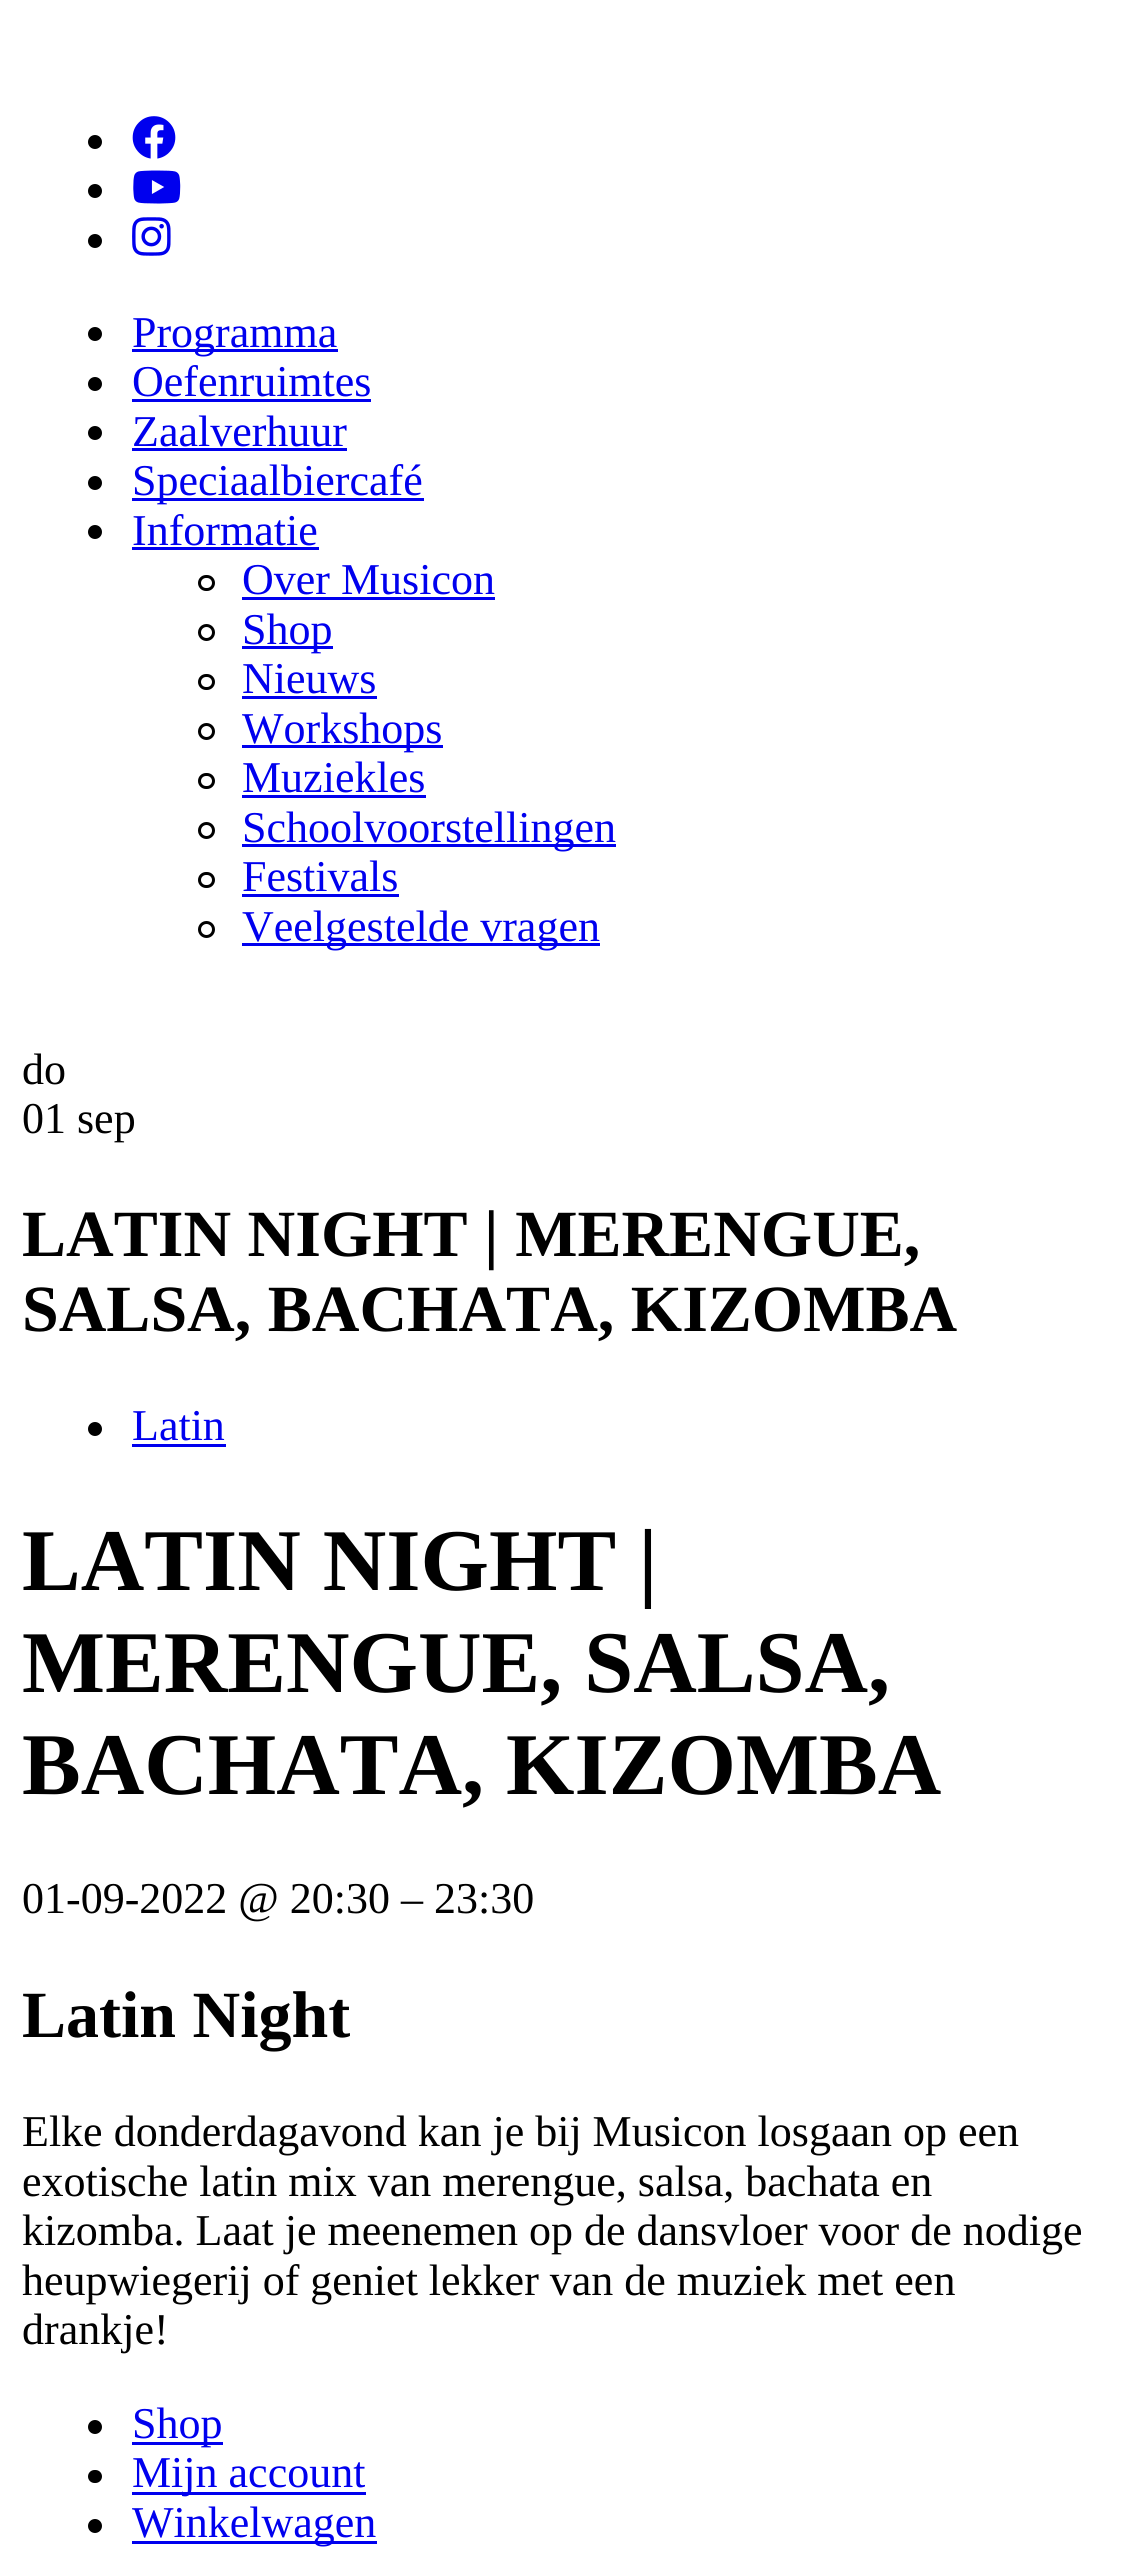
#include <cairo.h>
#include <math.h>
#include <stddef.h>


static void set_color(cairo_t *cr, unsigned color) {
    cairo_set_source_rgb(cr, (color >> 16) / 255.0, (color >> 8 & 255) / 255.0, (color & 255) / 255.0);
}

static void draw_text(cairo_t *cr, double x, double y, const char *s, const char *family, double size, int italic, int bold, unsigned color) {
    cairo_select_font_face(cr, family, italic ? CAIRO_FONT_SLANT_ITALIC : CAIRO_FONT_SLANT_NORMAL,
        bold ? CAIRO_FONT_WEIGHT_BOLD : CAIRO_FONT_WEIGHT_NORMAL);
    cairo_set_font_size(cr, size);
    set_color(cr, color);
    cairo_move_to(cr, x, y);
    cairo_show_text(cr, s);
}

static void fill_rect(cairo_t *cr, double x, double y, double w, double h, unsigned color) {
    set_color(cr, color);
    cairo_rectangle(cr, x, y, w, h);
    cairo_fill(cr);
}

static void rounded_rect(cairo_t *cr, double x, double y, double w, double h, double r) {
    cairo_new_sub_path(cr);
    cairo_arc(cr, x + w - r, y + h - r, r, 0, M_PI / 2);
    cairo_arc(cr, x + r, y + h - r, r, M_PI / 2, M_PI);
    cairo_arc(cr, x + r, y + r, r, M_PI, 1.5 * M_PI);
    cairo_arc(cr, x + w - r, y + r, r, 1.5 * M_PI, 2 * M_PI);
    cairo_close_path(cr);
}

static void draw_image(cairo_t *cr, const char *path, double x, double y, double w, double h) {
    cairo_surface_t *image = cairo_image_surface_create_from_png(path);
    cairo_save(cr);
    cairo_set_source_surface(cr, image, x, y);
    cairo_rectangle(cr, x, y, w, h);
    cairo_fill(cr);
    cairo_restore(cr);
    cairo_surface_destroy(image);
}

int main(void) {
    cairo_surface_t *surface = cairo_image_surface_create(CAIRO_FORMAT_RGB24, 1125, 2558);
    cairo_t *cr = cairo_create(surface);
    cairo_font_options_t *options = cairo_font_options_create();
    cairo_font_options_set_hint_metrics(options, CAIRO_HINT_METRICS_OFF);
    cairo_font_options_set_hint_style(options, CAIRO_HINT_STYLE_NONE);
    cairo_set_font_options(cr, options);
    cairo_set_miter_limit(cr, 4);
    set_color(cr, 0xFFFFFF);
    cairo_paint(cr);
    set_color(cr, 0x000000);
    cairo_arc(cr, 95, 142, 7, 0, 2 * M_PI);
    cairo_fill(cr);
    draw_image(cr, "assets/img1.png", 132, 116, 44, 43);
    cairo_arc(cr, 95, 191, 7, 0, 2 * M_PI);
    cairo_fill(cr);
    draw_image(cr, "assets/img2.png", 133, 170, 48, 34);
    cairo_arc(cr, 95, 241, 7, 0, 2 * M_PI);
    cairo_fill(cr);
    draw_image(cr, "assets/img3.png", 132, 217, 39, 39);
    cairo_arc(cr, 95, 334, 7, 0, 2 * M_PI);
    cairo_fill(cr);
    fill_rect(cr, 132, 349, 206, 3, 0x0000EE);
    draw_text(cr, 132, 347, "Programma", "Liberation Serif", 44, 0, 0, 0x0000EE);
    set_color(cr, 0x000000);
    cairo_new_path(cr);
    cairo_arc(cr, 95, 384, 7, 0, 2 * M_PI);
    cairo_fill(cr);
    draw_text(cr, 132, 396, "Oefenruimtes", "Liberation Serif", 44, 0, 0, 0x0000EE);
    fill_rect(cr, 132, 399, 239, 3, 0x0000EE);
    set_color(cr, 0x000000);
    cairo_new_path(cr);
    cairo_arc(cr, 95, 433, 7, 0, 2 * M_PI);
    cairo_fill(cr);
    draw_text(cr, 132, 446, "Zaalverhuur", "Liberation Serif", 44, 0, 0, 0x0000EE);
    fill_rect(cr, 132, 448, 215, 3, 0x0000EE);
    set_color(cr, 0x000000);
    cairo_new_path(cr);
    cairo_arc(cr, 95, 483, 7, 0, 2 * M_PI);
    cairo_fill(cr);
    fill_rect(cr, 132, 498, 292, 3, 0x0000EE);
    draw_text(cr, 132, 495, "Speciaalbiercafé", "Liberation Serif", 44, 0, 0, 0x0000EE);
    set_color(cr, 0x000000);
    cairo_new_path(cr);
    cairo_arc(cr, 95, 532, 7, 0, 2 * M_PI);
    cairo_fill(cr);
    draw_text(cr, 132, 545, "Informatie", "Liberation Serif", 44, 0, 0, 0x0000EE);
    fill_rect(cr, 132, 547, 187, 3, 0x0000EE);
    rounded_rect(cr, 199.5, 576.5, 14, 13, 6.5);
    set_color(cr, 0x000000);
    cairo_set_line_width(cr, 3);
    cairo_stroke(cr);
    draw_text(cr, 242, 594, "Over Musicon", "Liberation Serif", 44, 0, 0, 0x0000EE);
    fill_rect(cr, 242, 597, 253, 3, 0x0000EE);
    cairo_new_path(cr);
    cairo_arc(cr, 206.5, 632.5, 7, 0, 2 * M_PI);
    set_color(cr, 0x000000);
    cairo_stroke(cr);
    fill_rect(cr, 242, 646, 91, 3, 0x0000EE);
    draw_text(cr, 242, 644, "Shop", "Liberation Serif", 44, 0, 0, 0x0000EE);
    rounded_rect(cr, 199.5, 675.5, 14, 13, 6.5);
    set_color(cr, 0x000000);
    cairo_stroke(cr);
    draw_text(cr, 242, 693, "Nieuws", "Liberation Serif", 44, 0, 0, 0x0000EE);
    fill_rect(cr, 242, 696, 135, 3, 0x0000EE);
    cairo_new_path(cr);
    cairo_arc(cr, 206.5, 731.5, 7, 0, 2 * M_PI);
    set_color(cr, 0x000000);
    cairo_stroke(cr);
    fill_rect(cr, 242, 745, 201, 3, 0x0000EE);
    draw_text(cr, 242, 743, "Workshops", "Liberation Serif", 44, 0, 0, 0x0000EE);
    rounded_rect(cr, 199.5, 774.5, 14, 13, 6.5);
    set_color(cr, 0x000000);
    cairo_stroke(cr);
    draw_text(cr, 242, 792, "Muziekles", "Liberation Serif", 44, 0, 0, 0x0000EE);
    fill_rect(cr, 242, 795, 184, 3, 0x0000EE);
    cairo_new_path(cr);
    cairo_arc(cr, 206.5, 830.5, 7, 0, 2 * M_PI);
    set_color(cr, 0x000000);
    cairo_stroke(cr);
    fill_rect(cr, 242, 844, 374, 3, 0x0000EE);
    draw_text(cr, 242, 842, "Schoolvoorstellingen", "Liberation Serif", 44, 0, 0, 0x0000EE);
    rounded_rect(cr, 199.5, 873.5, 14, 13, 6.5);
    set_color(cr, 0x000000);
    cairo_stroke(cr);
    draw_text(cr, 242, 891, "Festivals", "Liberation Serif", 44, 0, 0, 0x0000EE);
    fill_rect(cr, 242, 894, 157, 3, 0x0000EE);
    cairo_new_path(cr);
    cairo_arc(cr, 206.5, 929.5, 7, 0, 2 * M_PI);
    set_color(cr, 0x000000);
    cairo_stroke(cr);
    fill_rect(cr, 242, 943, 358, 3, 0x0000EE);
    draw_text(cr, 242, 941, "Veelgestelde vragen", "Liberation Serif", 44, 0, 0, 0x0000EE);
    draw_text(cr, 22, 1084, "do", "Liberation Serif", 44, 0, 0, 0x000000);
    draw_text(cr, 22, 1133, "01 sep", "Liberation Serif", 44, 0, 0, 0x000000);
    draw_text(cr, 22, 1256, "LATIN NIGHT | MERENGUE,", "Liberation Serif", 66, 0, 1, 0x000000);
    draw_text(cr, 22, 1331, "SALSA, BACHATA, KIZOMBA", "Liberation Serif", 66, 0, 1, 0x000000);
    cairo_new_path(cr);
    cairo_arc(cr, 95, 1429, 7, 0, 2 * M_PI);
    cairo_fill(cr);
    draw_text(cr, 132, 1440, "Latin", "Liberation Serif", 44, 0, 0, 0x0000EE);
    fill_rect(cr, 132, 1444, 94, 3, 0x0000EE);
    draw_text(cr, 22, 1590, "LATIN NIGHT |", "Liberation Serif", 88, 0, 1, 0x000000);
    draw_text(cr, 22, 1692, "MERENGUE, SALSA,", "Liberation Serif", 88, 0, 1, 0x000000);
    draw_text(cr, 22, 1794, "BACHATA, KIZOMBA", "Liberation Serif", 88, 0, 1, 0x000000);
    draw_text(cr, 22, 1913, "01-09-2022 @ 20:30 – 23:30", "Liberation Serif", 44, 0, 0, 0x000000);
    draw_text(cr, 22, 2037, "Latin Night", "Liberation Serif", 66, 0, 1, 0x000000);
    draw_text(cr, 22, 2146, "Elke donderdagavond kan je bij Musicon losgaan op een", "Liberation Serif", 44, 0, 0, 0x000000);
    draw_text(cr, 22, 2196, "exotische latin mix van merengue, salsa, bachata en", "Liberation Serif", 44, 0, 0, 0x000000);
    draw_text(cr, 22, 2245, "kizomba. Laat je meenemen op de dansvloer voor de nodige", "Liberation Serif", 44, 0, 0, 0x000000);
    draw_text(cr, 22, 2295, "heupwiegerij of geniet lekker van de muziek met een", "Liberation Serif", 44, 0, 0, 0x000000);
    draw_text(cr, 22, 2344, "drankje!", "Liberation Serif", 44, 0, 0, 0x000000);
    cairo_new_path(cr);
    cairo_arc(cr, 95, 2427, 7, 0, 2 * M_PI);
    cairo_fill(cr);
    fill_rect(cr, 132, 2442, 91, 3, 0x0000EE);
    draw_text(cr, 132, 2438, "Shop", "Liberation Serif", 44, 0, 0, 0x0000EE);
    set_color(cr, 0x000000);
    rounded_rect(cr, 88, 2470, 14, 13, 6.5);
    cairo_fill(cr);
    fill_rect(cr, 132, 2492, 234, 3, 0x0000EE);
    draw_text(cr, 132, 2487, "Mijn account", "Liberation Serif", 44, 0, 0, 0x0000EE);
    set_color(cr, 0x000000);
    cairo_new_path(cr);
    cairo_arc(cr, 95, 2526, 7, 0, 2 * M_PI);
    cairo_fill(cr);
    fill_rect(cr, 132, 2541, 245, 3, 0x0000EE);
    draw_text(cr, 132, 2537, "Winkelwagen", "Liberation Serif", 44, 0, 0, 0x0000EE);
    cairo_surface_write_to_png(surface, "output.png");
    cairo_font_options_destroy(options);
    cairo_destroy(cr);
    cairo_surface_destroy(surface);
    return 0;
}
